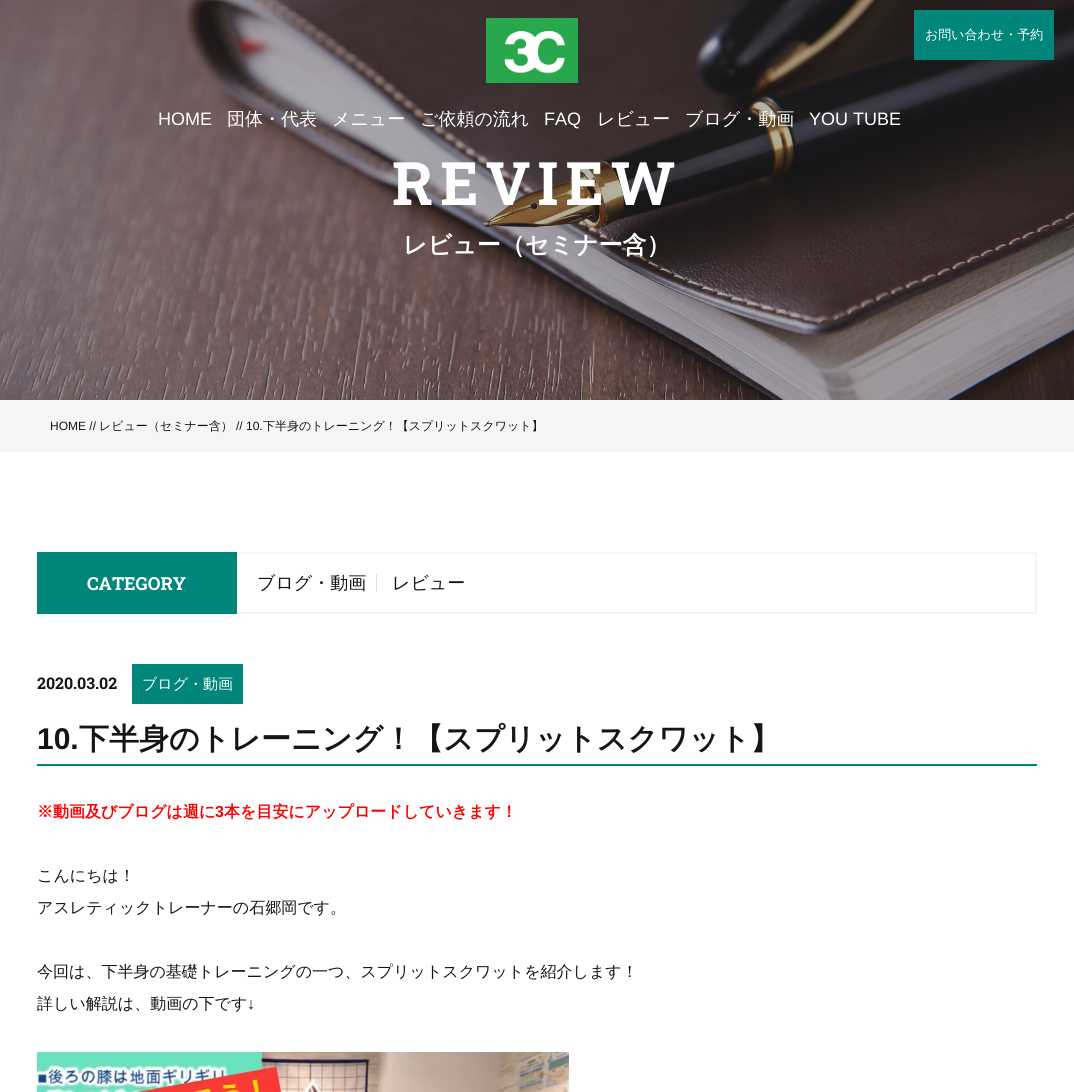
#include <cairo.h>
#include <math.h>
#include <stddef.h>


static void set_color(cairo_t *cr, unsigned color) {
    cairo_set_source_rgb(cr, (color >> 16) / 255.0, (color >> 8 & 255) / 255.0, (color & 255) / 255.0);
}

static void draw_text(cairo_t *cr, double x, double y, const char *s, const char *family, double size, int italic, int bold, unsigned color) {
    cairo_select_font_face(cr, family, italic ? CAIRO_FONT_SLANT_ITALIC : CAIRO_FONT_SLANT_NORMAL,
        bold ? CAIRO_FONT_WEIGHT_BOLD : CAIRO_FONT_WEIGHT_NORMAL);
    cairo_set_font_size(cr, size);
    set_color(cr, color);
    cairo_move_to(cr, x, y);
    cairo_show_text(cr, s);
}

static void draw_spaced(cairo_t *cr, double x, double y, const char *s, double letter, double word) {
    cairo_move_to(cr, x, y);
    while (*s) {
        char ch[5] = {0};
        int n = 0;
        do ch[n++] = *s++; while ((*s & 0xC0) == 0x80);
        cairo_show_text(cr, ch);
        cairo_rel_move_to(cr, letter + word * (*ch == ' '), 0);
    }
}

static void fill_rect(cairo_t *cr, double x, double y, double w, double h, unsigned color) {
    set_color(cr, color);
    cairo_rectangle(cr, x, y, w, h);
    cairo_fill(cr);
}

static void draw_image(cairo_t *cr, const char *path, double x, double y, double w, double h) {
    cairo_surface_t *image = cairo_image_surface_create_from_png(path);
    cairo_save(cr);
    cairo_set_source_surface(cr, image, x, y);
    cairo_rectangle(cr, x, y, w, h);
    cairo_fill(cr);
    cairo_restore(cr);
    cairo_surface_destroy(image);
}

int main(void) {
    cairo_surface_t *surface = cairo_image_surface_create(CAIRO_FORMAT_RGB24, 1074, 1092);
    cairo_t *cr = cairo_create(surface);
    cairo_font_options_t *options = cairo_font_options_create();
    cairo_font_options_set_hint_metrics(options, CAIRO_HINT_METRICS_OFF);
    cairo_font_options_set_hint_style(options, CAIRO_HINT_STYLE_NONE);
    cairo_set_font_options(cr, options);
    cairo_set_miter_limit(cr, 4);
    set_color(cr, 0xFFFFFF);
    cairo_paint(cr);
    draw_image(cr, "assets/img1.png", 0, 0, 1074, 400);
    draw_image(cr, "assets/img2.png", 486, 18, 92, 65);
    fill_rect(cr, 914, 10, 140, 50, 0x00867B);
    draw_text(cr, 925, 39, "お問い合わせ・予約", "WenQuanYi Zen Hei Medium", 13, 0, 0, 0xFFFFFF);
    draw_text(cr, 158, 125, "HOME", "Liberation Sans", 18, 0, 0, 0xFFFFFF);
    draw_text(cr, 227, 125, "団体・代表", "WenQuanYi Zen Hei Medium", 18, 0, 0, 0xFFFFFF);
    draw_text(cr, 332, 125, "メニュー", "WenQuanYi Zen Hei Medium", 18, 0, 0, 0xFFFFFF);
    draw_text(cr, 420, 125, "ご依頼の流れ", "WenQuanYi Zen Hei Medium", 18, 0, 0, 0xFFFFFF);
    draw_text(cr, 544, 125, "FAQ", "Liberation Sans", 18, 0, 0, 0xFFFFFF);
    draw_text(cr, 597, 125, "レビュー", "WenQuanYi Zen Hei Medium", 18, 0, 0, 0xFFFFFF);
    draw_text(cr, 685, 125, "ブログ・動画", "WenQuanYi Zen Hei Medium", 18, 0, 0, 0xFFFFFF);
    draw_text(cr, 809, 125, "YOU TUBE", "Liberation Sans", 18, 0, 0, 0xFFFFFF);
    cairo_select_font_face(cr, "Roboto Slab", CAIRO_FONT_SLANT_NORMAL, CAIRO_FONT_WEIGHT_BOLD);
    cairo_set_font_size(cr, 60);
    draw_spaced(cr, 392, 205, "REVIEW", 7, 0);
    draw_text(cr, 403, 253, "レビュー（セミナー含）", "WenQuanYi Zen Hei", 24, 0, 1, 0xFFFFFF);
    fill_rect(cr, 0, 400, 1074, 52, 0xF5F5F5);
    draw_text(cr, 50, 430, "HOME //", "Liberation Sans", 12, 0, 0, 0x151515);
    draw_text(cr, 99, 430, "レビュー（セミナー含）", "WenQuanYi Zen Hei Medium", 12, 0, 0, 0x151515);
    draw_text(cr, 236, 430, "// 10.", "Liberation Sans", 12, 0, 0, 0x151515);
    draw_text(cr, 263, 430, "下半身のトレーニング！【スプリットスクワット】", "WenQuanYi Zen Hei Medium", 12, 0, 0, 0x151515);
    fill_rect(cr, 37, 552, 200, 62, 0x00867B);
    draw_text(cr, 87, 590, "CATEGORY", "Roboto Slab", 18, 0, 1, 0xFFFFFF);
    fill_rect(cr, 237, 552, 800, 2, 0xF5F5F5);
    fill_rect(cr, 1035, 552, 2, 62, 0xF5F5F5);
    fill_rect(cr, 237, 612, 800, 2, 0xF5F5F5);
    fill_rect(cr, 376, 574, 1, 18, 0xDDDDDD);
    draw_text(cr, 257, 589, "ブログ・動画", "WenQuanYi Zen Hei Medium", 18, 0, 0, 0x151515);
    draw_text(cr, 392, 589, "レビュー", "WenQuanYi Zen Hei Medium", 18, 0, 0, 0x151515);
    draw_text(cr, 37, 689, "2020.03.02", "Roboto Slab", 16, 0, 1, 0x151515);
    fill_rect(cr, 132, 664, 111, 40, 0x00867B);
    draw_text(cr, 142, 689, "ブログ・動画", "WenQuanYi Zen Hei Medium", 15, 0, 0, 0xFFFFFF);
    fill_rect(cr, 37, 764, 1000, 2, 0x00867B);
    draw_text(cr, 37, 749, "10.", "Liberation Sans", 30, 0, 1, 0x151515);
    draw_text(cr, 79, 749, "下半身のトレーニング！【スプリットスクワット】", "WenQuanYi Zen Hei", 30, 0, 1, 0x151515);
    draw_text(cr, 37, 817, "※動画及びブログは週に", "WenQuanYi Zen Hei", 16, 0, 1, 0xFF0000);
    draw_text(cr, 215, 817, "3", "Liberation Sans", 16, 0, 1, 0xFF0000);
    draw_text(cr, 224, 817, "本を目安にアップロードしていきます！", "WenQuanYi Zen Hei", 16, 0, 1, 0xFF0000);
    draw_text(cr, 37, 881, "こんにちは！", "WenQuanYi Zen Hei Medium", 16, 0, 0, 0x151515);
    draw_text(cr, 37, 913, "アスレティックトレーナーの石郷岡です。", "WenQuanYi Zen Hei Medium", 16, 0, 0, 0x151515);
    draw_text(cr, 37, 977, "今回は、下半身の基礎トレーニングの一つ、スプリットスクワットを紹介します！", "WenQuanYi Zen Hei Medium", 16, 0, 0, 0x151515);
    draw_text(cr, 37, 1009, "詳しい解説は、動画の下です", "WenQuanYi Zen Hei Medium", 16, 0, 0, 0x151515);
    draw_text(cr, 247, 1009, "↓", "Liberation Sans", 16, 0, 0, 0x151515);
    draw_image(cr, "assets/img3.png", 37, 1052, 532, 40);
    cairo_surface_write_to_png(surface, "output.png");
    cairo_font_options_destroy(options);
    cairo_destroy(cr);
    cairo_surface_destroy(surface);
    return 0;
}
